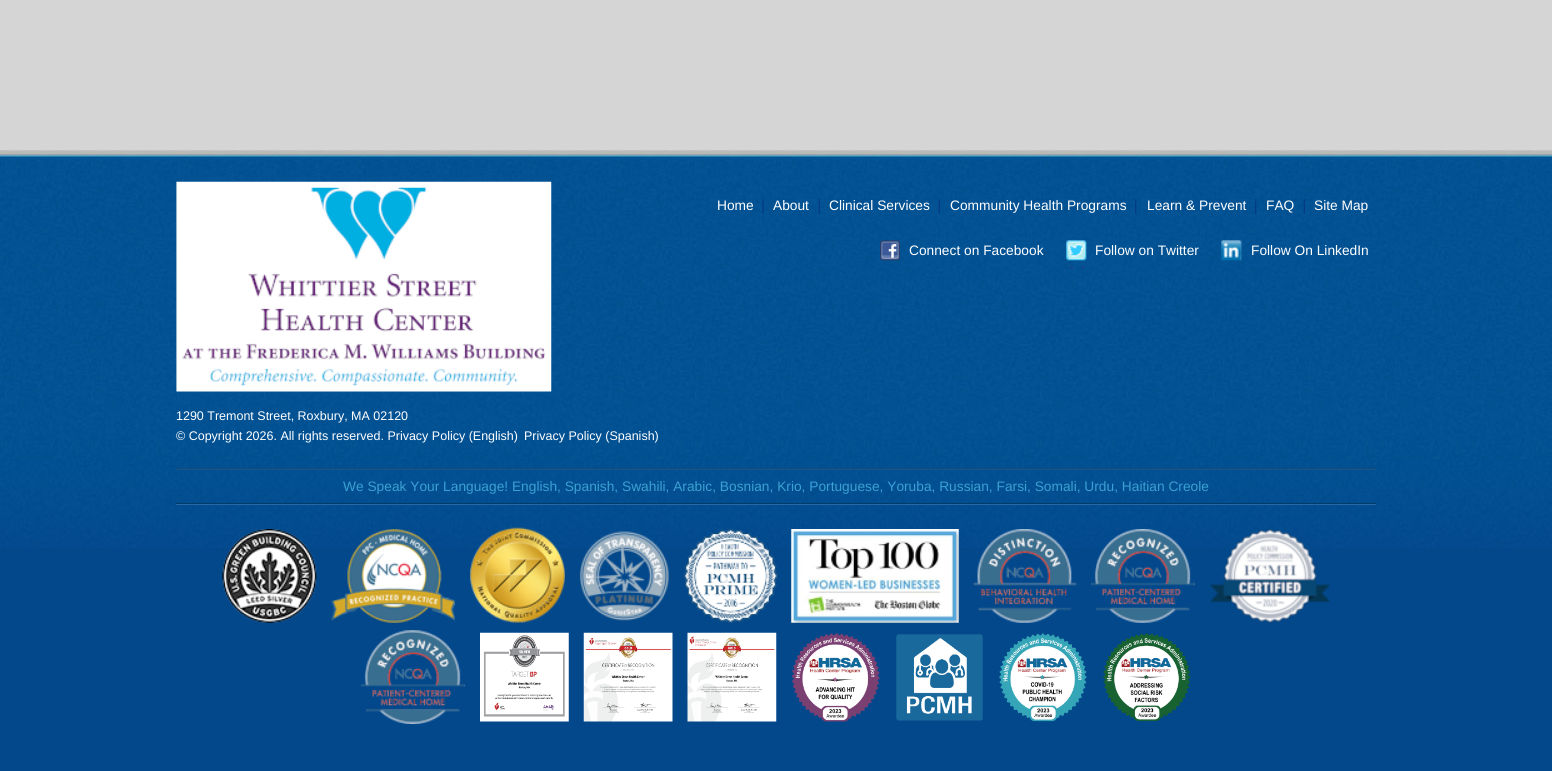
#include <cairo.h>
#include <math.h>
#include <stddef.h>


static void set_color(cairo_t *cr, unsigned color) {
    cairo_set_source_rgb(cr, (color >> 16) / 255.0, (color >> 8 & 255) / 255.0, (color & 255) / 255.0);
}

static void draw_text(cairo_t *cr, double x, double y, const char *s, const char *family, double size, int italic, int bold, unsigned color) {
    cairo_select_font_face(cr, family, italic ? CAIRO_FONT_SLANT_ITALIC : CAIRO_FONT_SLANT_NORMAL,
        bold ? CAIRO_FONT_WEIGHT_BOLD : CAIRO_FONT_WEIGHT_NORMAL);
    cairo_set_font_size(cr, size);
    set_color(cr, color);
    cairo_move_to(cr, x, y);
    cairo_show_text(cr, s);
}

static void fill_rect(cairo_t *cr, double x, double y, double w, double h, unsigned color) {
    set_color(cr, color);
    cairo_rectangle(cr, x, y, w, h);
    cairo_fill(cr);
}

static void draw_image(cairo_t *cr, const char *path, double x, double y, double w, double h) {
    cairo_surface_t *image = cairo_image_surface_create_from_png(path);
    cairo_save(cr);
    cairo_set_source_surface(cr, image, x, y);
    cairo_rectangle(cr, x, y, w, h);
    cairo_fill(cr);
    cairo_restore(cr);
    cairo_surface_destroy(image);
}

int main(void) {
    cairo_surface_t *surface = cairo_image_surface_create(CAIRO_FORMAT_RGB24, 1552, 771);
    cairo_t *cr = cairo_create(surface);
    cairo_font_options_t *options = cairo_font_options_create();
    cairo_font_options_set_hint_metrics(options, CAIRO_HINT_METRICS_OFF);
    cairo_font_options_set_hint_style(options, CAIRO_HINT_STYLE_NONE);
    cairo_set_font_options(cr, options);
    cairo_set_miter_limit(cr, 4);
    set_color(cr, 0x03488B);
    cairo_paint(cr);
    fill_rect(cr, 0, 0, 1552, 149, 0xD5D5D5);
    draw_image(cr, "assets/img1.png", 0, 149, 1552, 399);
    draw_text(cr, 717, 210, "Home", "Liberation Sans", 13.75, 0, 0, 0xFFFFFF);
    draw_image(cr, "assets/img2.png", 762, 199, 2, 15);
    draw_text(cr, 773, 210, "About", "Liberation Sans", 13.75, 0, 0, 0xFFFFFF);
    draw_image(cr, "assets/img3.png", 818, 199, 2, 15);
    draw_text(cr, 829, 210, "Clinical Services", "Liberation Sans", 13.75, 0, 0, 0xFFFFFF);
    draw_image(cr, "assets/img4.png", 938, 199, 2, 15);
    draw_text(cr, 950, 210, "Community Health Programs", "Liberation Sans", 13.75, 0, 0, 0xFFFFFF);
    draw_image(cr, "assets/img5.png", 1135, 199, 2, 15);
    draw_text(cr, 1147, 210, "Learn & Prevent", "Liberation Sans", 13.75, 0, 0, 0xFFFFFF);
    draw_image(cr, "assets/img6.png", 1255, 199, 2, 15);
    draw_text(cr, 1266, 210, "FAQ", "Liberation Sans", 13.75, 0, 0, 0xFFFFFF);
    draw_image(cr, "assets/img7.png", 1303, 199, 2, 15);
    draw_text(cr, 1314, 210, "Site Map", "Liberation Sans", 13.75, 0, 0, 0xFFFFFF);
    draw_image(cr, "assets/img8.png", 880, 240, 20, 21);
    draw_text(cr, 909, 255, "Connect on Facebook", "Liberation Sans", 13.75, 0, 0, 0xFFFFFF);
    draw_image(cr, "assets/img9.png", 1066, 240, 21, 28);
    draw_text(cr, 1095, 255, "Follow on Twitter", "Liberation Sans", 13.75, 0, 0, 0xFFFFFF);
    draw_image(cr, "assets/img10.png", 1221, 240, 22, 21);
    draw_text(cr, 1251, 255, "Follow On LinkedIn", "Liberation Sans", 13.75, 0, 0, 0xFFFFFF);
    draw_image(cr, "assets/img11.png", 176, 181, 376, 211);
    draw_text(cr, 176, 420, "1290 Tremont Street, Roxbury, MA 02120", "Liberation Sans", 12.5, 0, 0, 0xFFFFFF);
    fill_rect(cr, 176, 468, 1200, 1, 0x144B79);
    draw_text(cr, 176, 440, "© Copyright 2026. All rights reserved. Privacy Policy (English)", "Liberation Sans", 12.5, 0, 0, 0xFFFFFF);
    draw_text(cr, 524, 440, "Privacy Policy (Spanish)", "Liberation Sans", 12.5, 0, 0, 0xFFFFFF);
    fill_rect(cr, 176, 469, 1200, 1, 0x135791);
    fill_rect(cr, 176, 503, 1200, 1, 0x003B69);
    draw_text(cr, 343, 491, "We Speak Your Language! English, Spanish, Swahili, Arabic, Bosnian, Krio, Portuguese, Yoruba, Russian, Farsi, Somali, Urdu, Haitian Creole", "Liberation Sans", 13.75, 0, 0, 0x3BA0D2);
    fill_rect(cr, 176, 504, 1200, 1, 0x2968A0);
    draw_image(cr, "assets/img12.png", 222, 529, 95, 94);
    draw_image(cr, "assets/img13.png", 331, 529, 124, 94);
    draw_image(cr, "assets/img14.png", 470, 527, 95, 96);
    draw_image(cr, "assets/img15.png", 580, 531, 89, 90);
    draw_image(cr, "assets/img16.png", 683, 529, 95, 94);
    draw_image(cr, "assets/img17.png", 791, 529, 168, 94);
    draw_image(cr, "assets/img18.png", 973, 529, 104, 94);
    draw_image(cr, "assets/img19.png", 1091, 529, 104, 94);
    draw_image(cr, "assets/img20.png", 1210, 529, 120, 94);
    draw_image(cr, "assets/img21.png", 361, 630, 104, 94);
    draw_image(cr, "assets/img22.png", 480, 632, 89, 90);
    draw_image(cr, "assets/img23.png", 583, 632, 90, 90);
    draw_image(cr, "assets/img24.png", 687, 632, 90, 90);
    draw_image(cr, "assets/img25.png", 791, 632, 89, 90);
    draw_image(cr, "assets/img26.png", 896, 634, 87, 87);
    draw_image(cr, "assets/img27.png", 999, 633, 88, 89);
    draw_image(cr, "assets/img28.png", 1103, 633, 88, 88);
    cairo_surface_write_to_png(surface, "output.png");
    cairo_font_options_destroy(options);
    cairo_destroy(cr);
    cairo_surface_destroy(surface);
    return 0;
}
